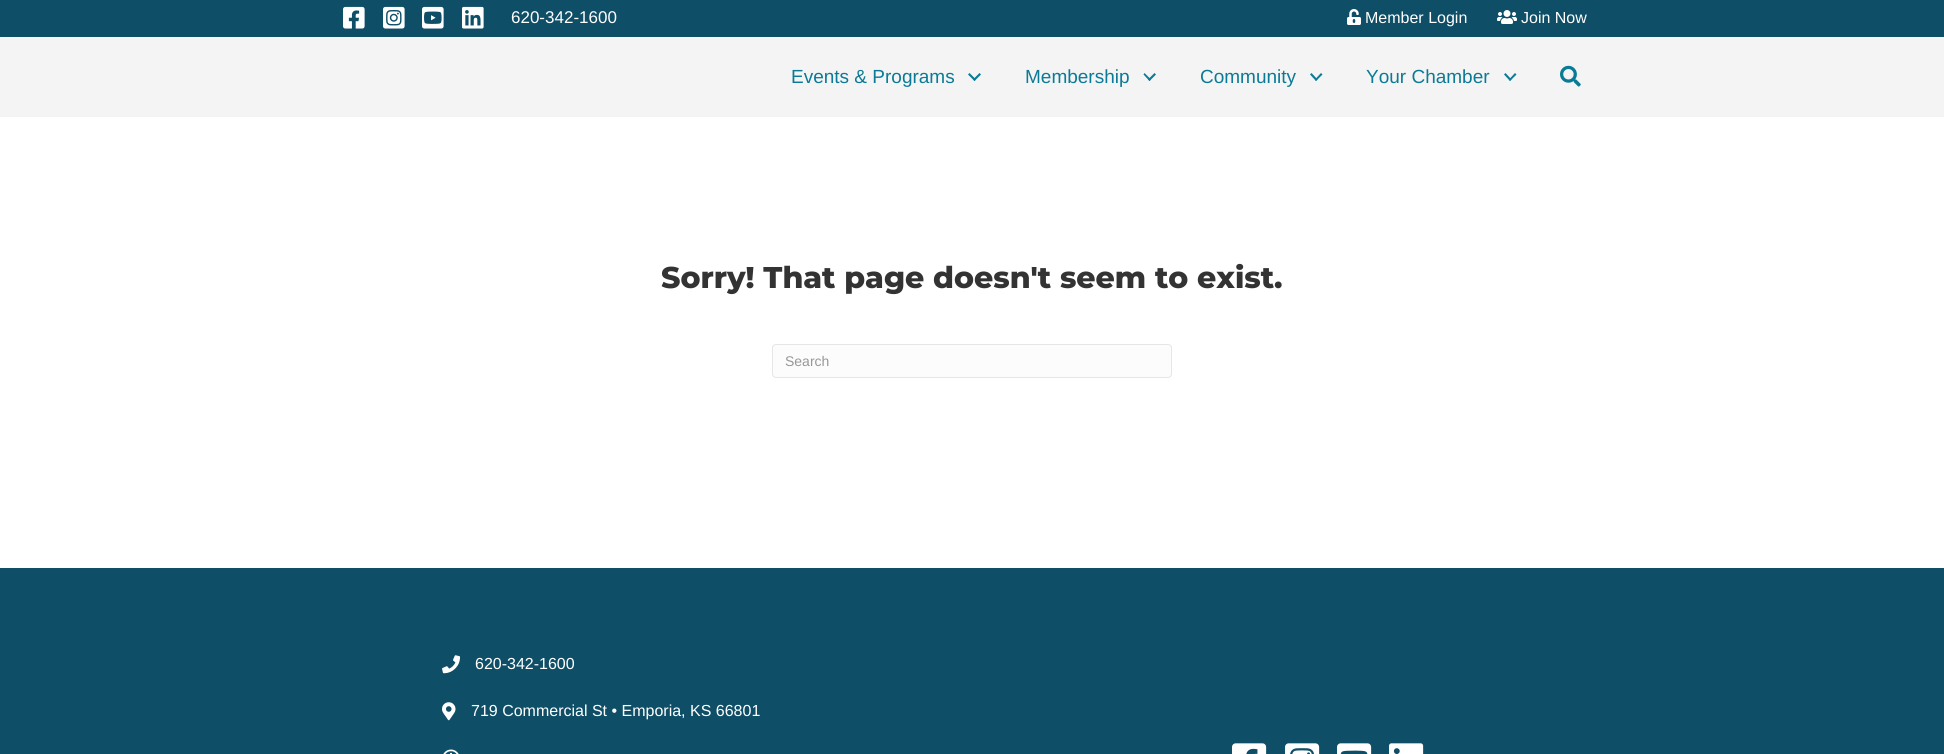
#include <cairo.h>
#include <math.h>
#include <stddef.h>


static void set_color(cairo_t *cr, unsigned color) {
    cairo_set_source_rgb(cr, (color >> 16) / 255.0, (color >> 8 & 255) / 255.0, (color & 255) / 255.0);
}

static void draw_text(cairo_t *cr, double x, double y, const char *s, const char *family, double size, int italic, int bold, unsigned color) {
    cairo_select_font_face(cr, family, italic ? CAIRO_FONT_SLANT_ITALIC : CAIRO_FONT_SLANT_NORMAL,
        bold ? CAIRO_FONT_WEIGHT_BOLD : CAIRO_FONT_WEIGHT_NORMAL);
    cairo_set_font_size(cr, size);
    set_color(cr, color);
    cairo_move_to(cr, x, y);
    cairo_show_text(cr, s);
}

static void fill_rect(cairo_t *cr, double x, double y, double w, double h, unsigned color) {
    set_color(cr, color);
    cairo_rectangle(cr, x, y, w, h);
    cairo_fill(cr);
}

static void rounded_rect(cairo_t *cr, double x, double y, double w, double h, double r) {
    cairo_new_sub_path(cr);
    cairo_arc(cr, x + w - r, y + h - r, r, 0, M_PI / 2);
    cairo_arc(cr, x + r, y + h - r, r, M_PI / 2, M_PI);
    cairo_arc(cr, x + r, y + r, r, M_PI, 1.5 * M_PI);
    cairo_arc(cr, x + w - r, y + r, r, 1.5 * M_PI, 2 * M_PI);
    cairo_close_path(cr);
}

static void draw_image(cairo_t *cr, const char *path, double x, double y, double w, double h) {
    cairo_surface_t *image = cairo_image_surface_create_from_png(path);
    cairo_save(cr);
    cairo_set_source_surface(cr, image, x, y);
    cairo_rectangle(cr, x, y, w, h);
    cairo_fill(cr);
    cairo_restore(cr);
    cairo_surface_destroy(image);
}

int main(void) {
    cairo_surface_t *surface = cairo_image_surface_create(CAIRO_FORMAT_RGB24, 1944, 754);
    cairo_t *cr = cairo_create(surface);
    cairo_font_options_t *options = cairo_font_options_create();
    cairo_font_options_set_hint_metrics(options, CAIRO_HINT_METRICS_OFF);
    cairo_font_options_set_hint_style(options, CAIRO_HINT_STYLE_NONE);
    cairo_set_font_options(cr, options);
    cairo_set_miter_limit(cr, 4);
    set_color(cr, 0xFFFFFF);
    cairo_paint(cr);
    fill_rect(cr, 0, 0, 1944, 37, 0x0E4E66);
    draw_image(cr, "assets/img1.png", 343, 6, 22, 23);
    draw_image(cr, "assets/img2.png", 383, 6, 22, 23);
    draw_image(cr, "assets/img3.png", 422, 6, 22, 23);
    draw_image(cr, "assets/img4.png", 462, 6, 22, 23);
    draw_text(cr, 511, 23, "620-342-1600", "Liberation Sans", 17, 0, 0, 0xFFFFFF);
    draw_image(cr, "assets/img5.png", 1347, 9, 14, 16);
    draw_text(cr, 1365, 23, "Member Login", "Liberation Sans", 16, 0, 0, 0xFFFFFF);
    draw_image(cr, "assets/img6.png", 1497, 10, 20, 14);
    draw_text(cr, 1521, 23, "Join Now", "Liberation Sans", 16, 0, 0, 0xFFFFFF);
    fill_rect(cr, 0, 37, 1944, 80, 0xF4F4F4);
    draw_text(cr, 791, 83, "Events & Programs", "Liberation Sans", 19, 0, 0, 0x0B7A96);
    cairo_new_path(cr);
    cairo_move_to(cr, 979.5, 73);
    cairo_line_to(cr, 981, 74.5);
    cairo_line_to(cr, 974.5, 81);
    cairo_line_to(cr, 973, 79.5);
    cairo_close_path(cr);
    cairo_fill(cr);
    cairo_new_path(cr);
    cairo_move_to(cr, 969.5, 73);
    cairo_line_to(cr, 976, 79.5);
    cairo_line_to(cr, 974.5, 81);
    cairo_line_to(cr, 968, 74.5);
    cairo_close_path(cr);
    cairo_fill(cr);
    draw_text(cr, 1025, 83, "Membership", "Liberation Sans", 19, 0, 0, 0x0B7A96);
    cairo_new_path(cr);
    cairo_move_to(cr, 1154.5, 73);
    cairo_line_to(cr, 1156, 74.5);
    cairo_line_to(cr, 1149.5, 81);
    cairo_line_to(cr, 1148, 79.5);
    cairo_close_path(cr);
    cairo_fill(cr);
    cairo_new_path(cr);
    cairo_move_to(cr, 1144.5, 73);
    cairo_line_to(cr, 1151, 79.5);
    cairo_line_to(cr, 1149.5, 81);
    cairo_line_to(cr, 1143.5, 74.5);
    cairo_close_path(cr);
    cairo_fill(cr);
    draw_text(cr, 1200, 83, "Community", "Liberation Sans", 19, 0, 0, 0x0B7A96);
    cairo_new_path(cr);
    cairo_move_to(cr, 1321, 73);
    cairo_line_to(cr, 1322.5, 74.5);
    cairo_line_to(cr, 1316, 81);
    cairo_line_to(cr, 1315, 79.5);
    cairo_close_path(cr);
    cairo_fill(cr);
    cairo_new_path(cr);
    cairo_move_to(cr, 1311.5, 73);
    cairo_line_to(cr, 1317.5, 79.5);
    cairo_line_to(cr, 1316, 81);
    cairo_line_to(cr, 1310, 74.5);
    cairo_close_path(cr);
    cairo_fill(cr);
    draw_text(cr, 1366, 83, "Your Chamber", "Liberation Sans", 19, 0, 0, 0x0B7A96);
    cairo_new_path(cr);
    cairo_move_to(cr, 1515, 73);
    cairo_line_to(cr, 1516.5, 74.5);
    cairo_line_to(cr, 1510, 81);
    cairo_line_to(cr, 1509, 79.5);
    cairo_close_path(cr);
    cairo_fill(cr);
    cairo_new_path(cr);
    cairo_move_to(cr, 1505.5, 73);
    cairo_line_to(cr, 1511.5, 79.5);
    cairo_line_to(cr, 1510, 81);
    cairo_line_to(cr, 1504, 74.5);
    cairo_close_path(cr);
    cairo_fill(cr);
    draw_image(cr, "assets/img7.png", 1560, 65, 21, 22);
    draw_text(cr, 661, 288, "Sorry! That page doesn't seem to exist.", "Montserrat Thin", 30, 0, 0, 0x333333);
    set_color(cr, 0xFCFCFC);
    rounded_rect(cr, 772.5, 344.5, 399, 33, 3.5);
    cairo_fill_preserve(cr);
    set_color(cr, 0xE6E6E6);
    cairo_set_line_width(cr, 1);
    cairo_stroke(cr);
    draw_text(cr, 785, 366, "Search", "Liberation Sans", 14, 0, 0, 0x979797);
    fill_rect(cr, 0, 568, 1944, 186, 0x0E4E66);
    draw_image(cr, "assets/img8.png", 442, 655, 18, 19);
    draw_text(cr, 475, 669, "620-342-1600", "Liberation Sans", 16, 0, 0, 0xFFFFFF);
    draw_image(cr, "assets/img9.png", 442, 702, 14, 19);
    draw_text(cr, 471, 716, "719 Commercial St • Emporia, KS 66801", "Liberation Sans", 16, 0, 0, 0xFFFFFF);
    draw_image(cr, "assets/img10.png", 443, 749, 16, 5);
    draw_image(cr, "assets/img11.png", 1232, 743, 35, 11);
    draw_image(cr, "assets/img12.png", 1285, 743, 35, 11);
    draw_image(cr, "assets/img13.png", 1337, 743, 35, 11);
    draw_image(cr, "assets/img14.png", 1389, 743, 35, 11);
    cairo_surface_write_to_png(surface, "output.png");
    cairo_font_options_destroy(options);
    cairo_destroy(cr);
    cairo_surface_destroy(surface);
    return 0;
}
